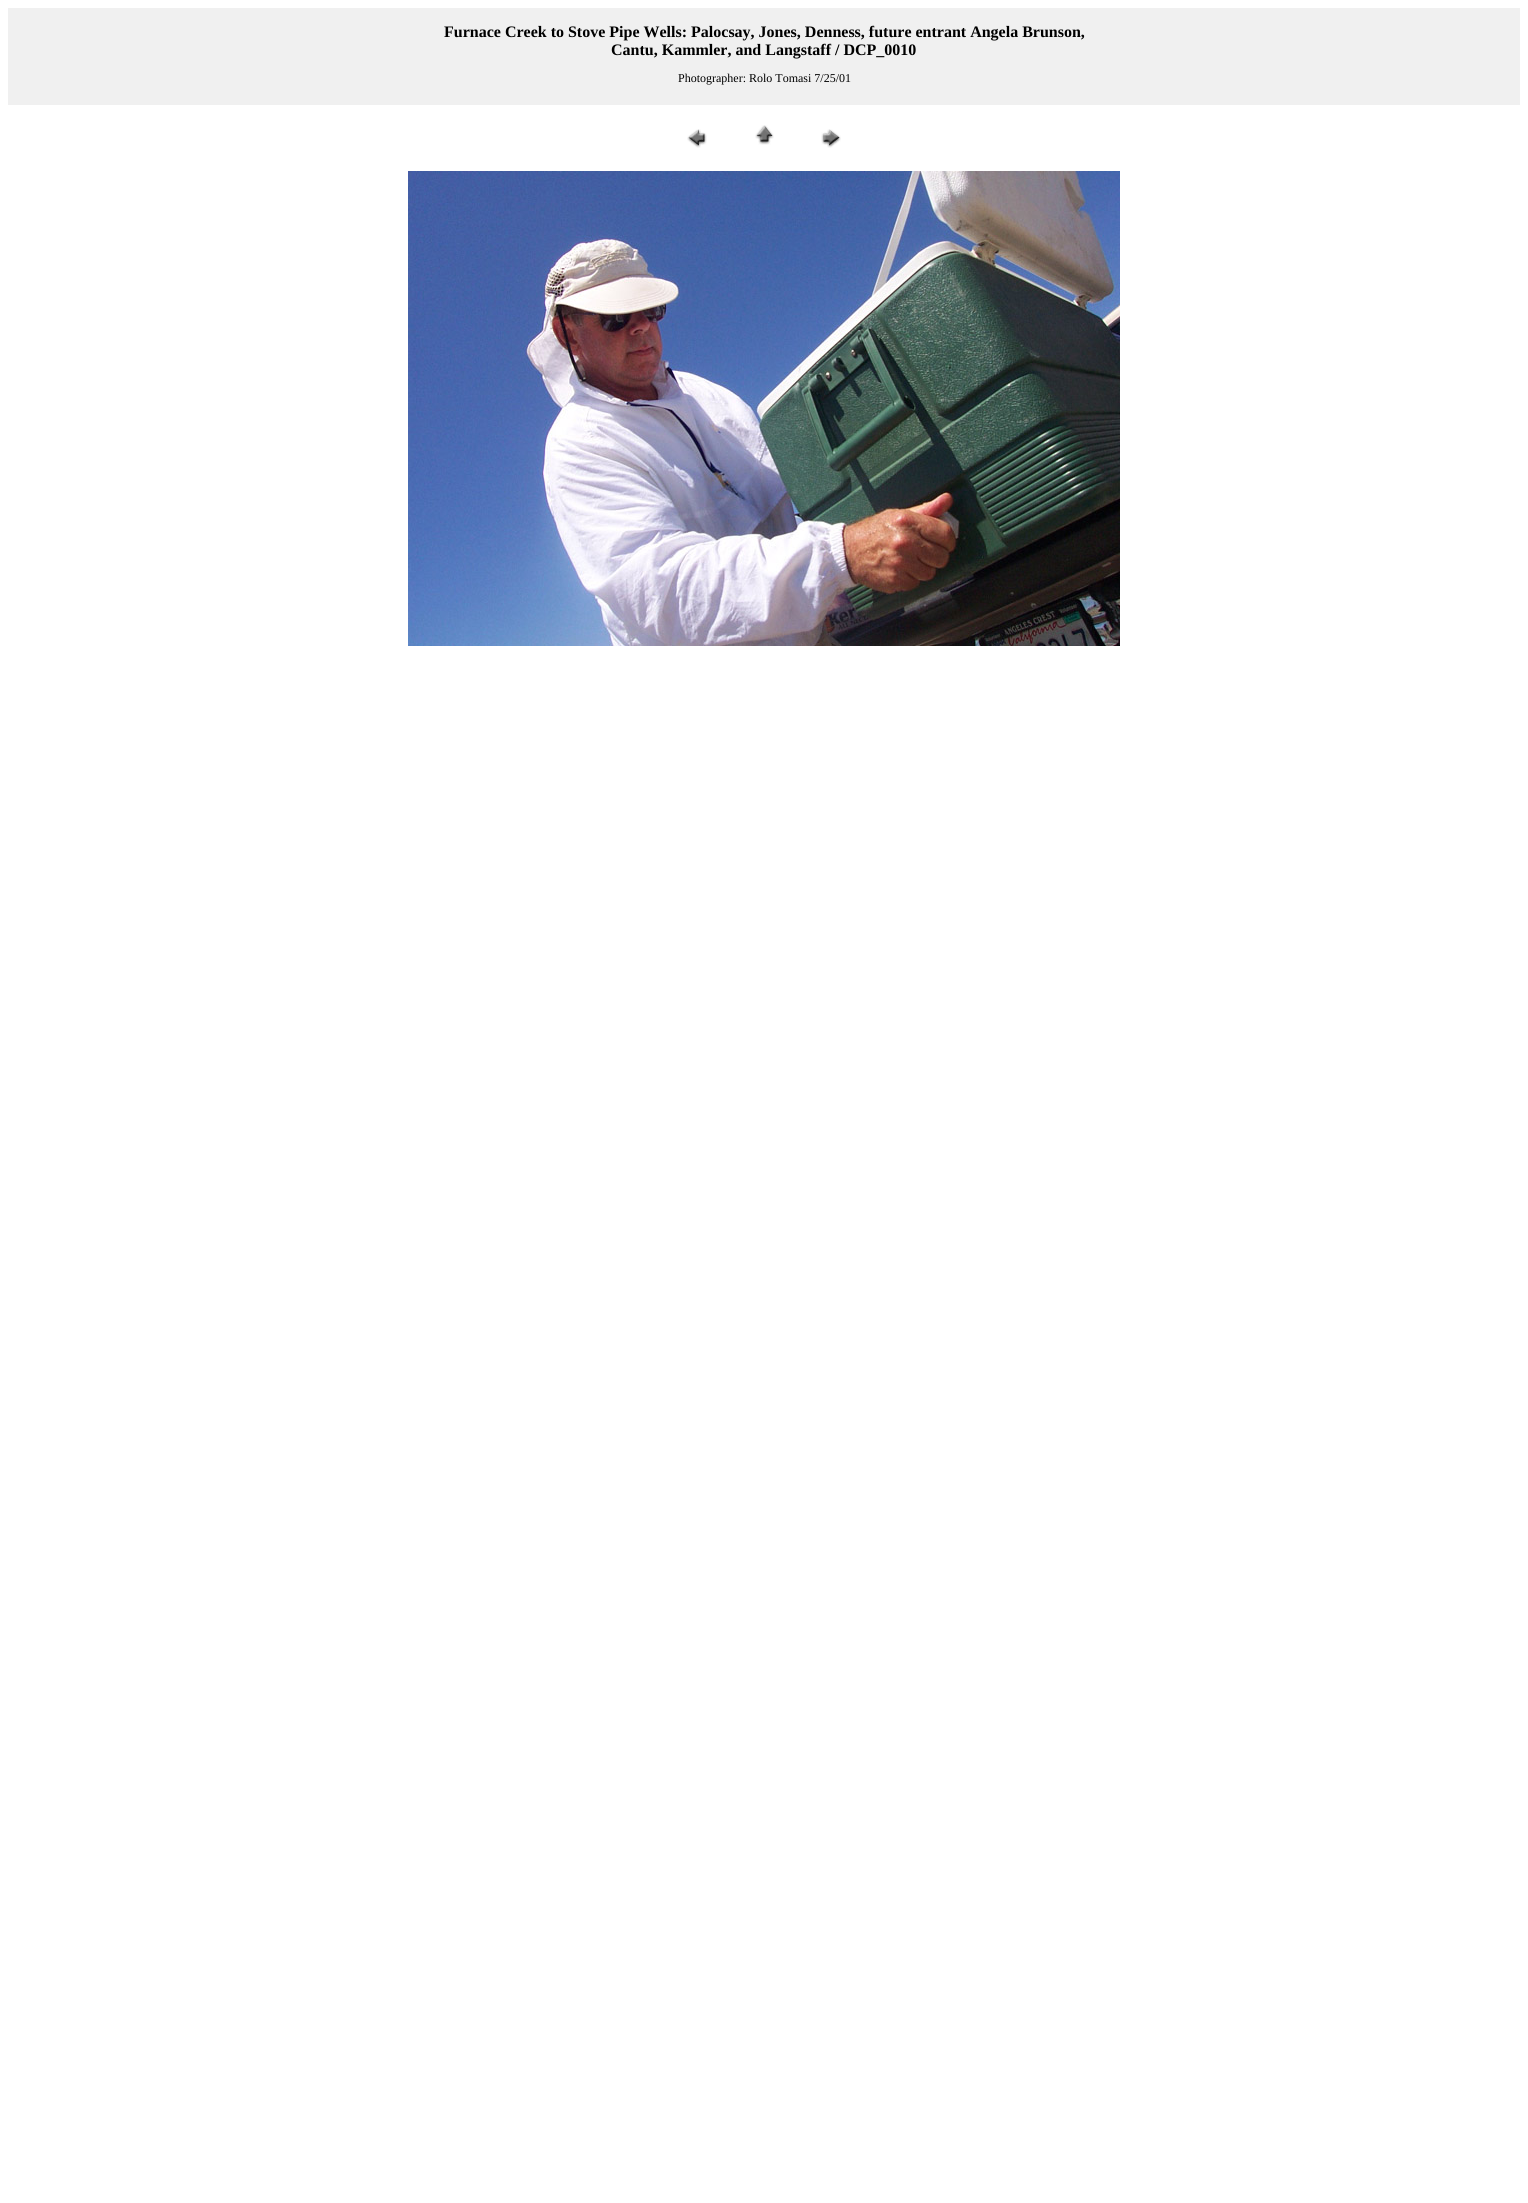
#include <cairo.h>
#include <math.h>
#include <stddef.h>


static void set_color(cairo_t *cr, unsigned color) {
    cairo_set_source_rgb(cr, (color >> 16) / 255.0, (color >> 8 & 255) / 255.0, (color & 255) / 255.0);
}

static void draw_text(cairo_t *cr, double x, double y, const char *s, const char *family, double size, int italic, int bold, unsigned color) {
    cairo_select_font_face(cr, family, italic ? CAIRO_FONT_SLANT_ITALIC : CAIRO_FONT_SLANT_NORMAL,
        bold ? CAIRO_FONT_WEIGHT_BOLD : CAIRO_FONT_WEIGHT_NORMAL);
    cairo_set_font_size(cr, size);
    set_color(cr, color);
    cairo_move_to(cr, x, y);
    cairo_show_text(cr, s);
}

static void fill_rect(cairo_t *cr, double x, double y, double w, double h, unsigned color) {
    set_color(cr, color);
    cairo_rectangle(cr, x, y, w, h);
    cairo_fill(cr);
}

static void draw_image(cairo_t *cr, const char *path, double x, double y, double w, double h) {
    cairo_surface_t *image = cairo_image_surface_create_from_png(path);
    cairo_save(cr);
    cairo_set_source_surface(cr, image, x, y);
    cairo_rectangle(cr, x, y, w, h);
    cairo_fill(cr);
    cairo_restore(cr);
    cairo_surface_destroy(image);
}

int main(void) {
    cairo_surface_t *surface = cairo_image_surface_create(CAIRO_FORMAT_RGB24, 1528, 2203);
    cairo_t *cr = cairo_create(surface);
    cairo_font_options_t *options = cairo_font_options_create();
    cairo_font_options_set_hint_metrics(options, CAIRO_HINT_METRICS_OFF);
    cairo_font_options_set_hint_style(options, CAIRO_HINT_STYLE_NONE);
    cairo_set_font_options(cr, options);
    cairo_set_miter_limit(cr, 4);
    set_color(cr, 0xFFFFFF);
    cairo_paint(cr);
    fill_rect(cr, 8, 8, 1512, 97, 0xF0F0F0);
    draw_text(cr, 444, 37, "Furnace Creek to Stove Pipe Wells: Palocsay, Jones, Denness, future entrant Angela Brunson,", "Liberation Serif", 16, 0, 1, 0x000000);
    draw_text(cr, 611, 55, "Cantu, Kammler, and Langstaff / DCP_0010", "Liberation Serif", 16, 0, 1, 0x000000);
    draw_text(cr, 678, 82, "Photographer: Rolo Tomasi 7/25/01", "Liberation Serif", 12, 0, 0, 0x000000);
    draw_image(cr, "assets/img1.png", 687, 129, 20, 19);
    draw_image(cr, "assets/img2.png", 755, 125, 19, 20);
    draw_image(cr, "assets/img3.png", 821, 129, 20, 19);
    draw_image(cr, "assets/img4.png", 408, 171, 712, 475);
    cairo_surface_write_to_png(surface, "output.png");
    cairo_font_options_destroy(options);
    cairo_destroy(cr);
    cairo_surface_destroy(surface);
    return 0;
}
